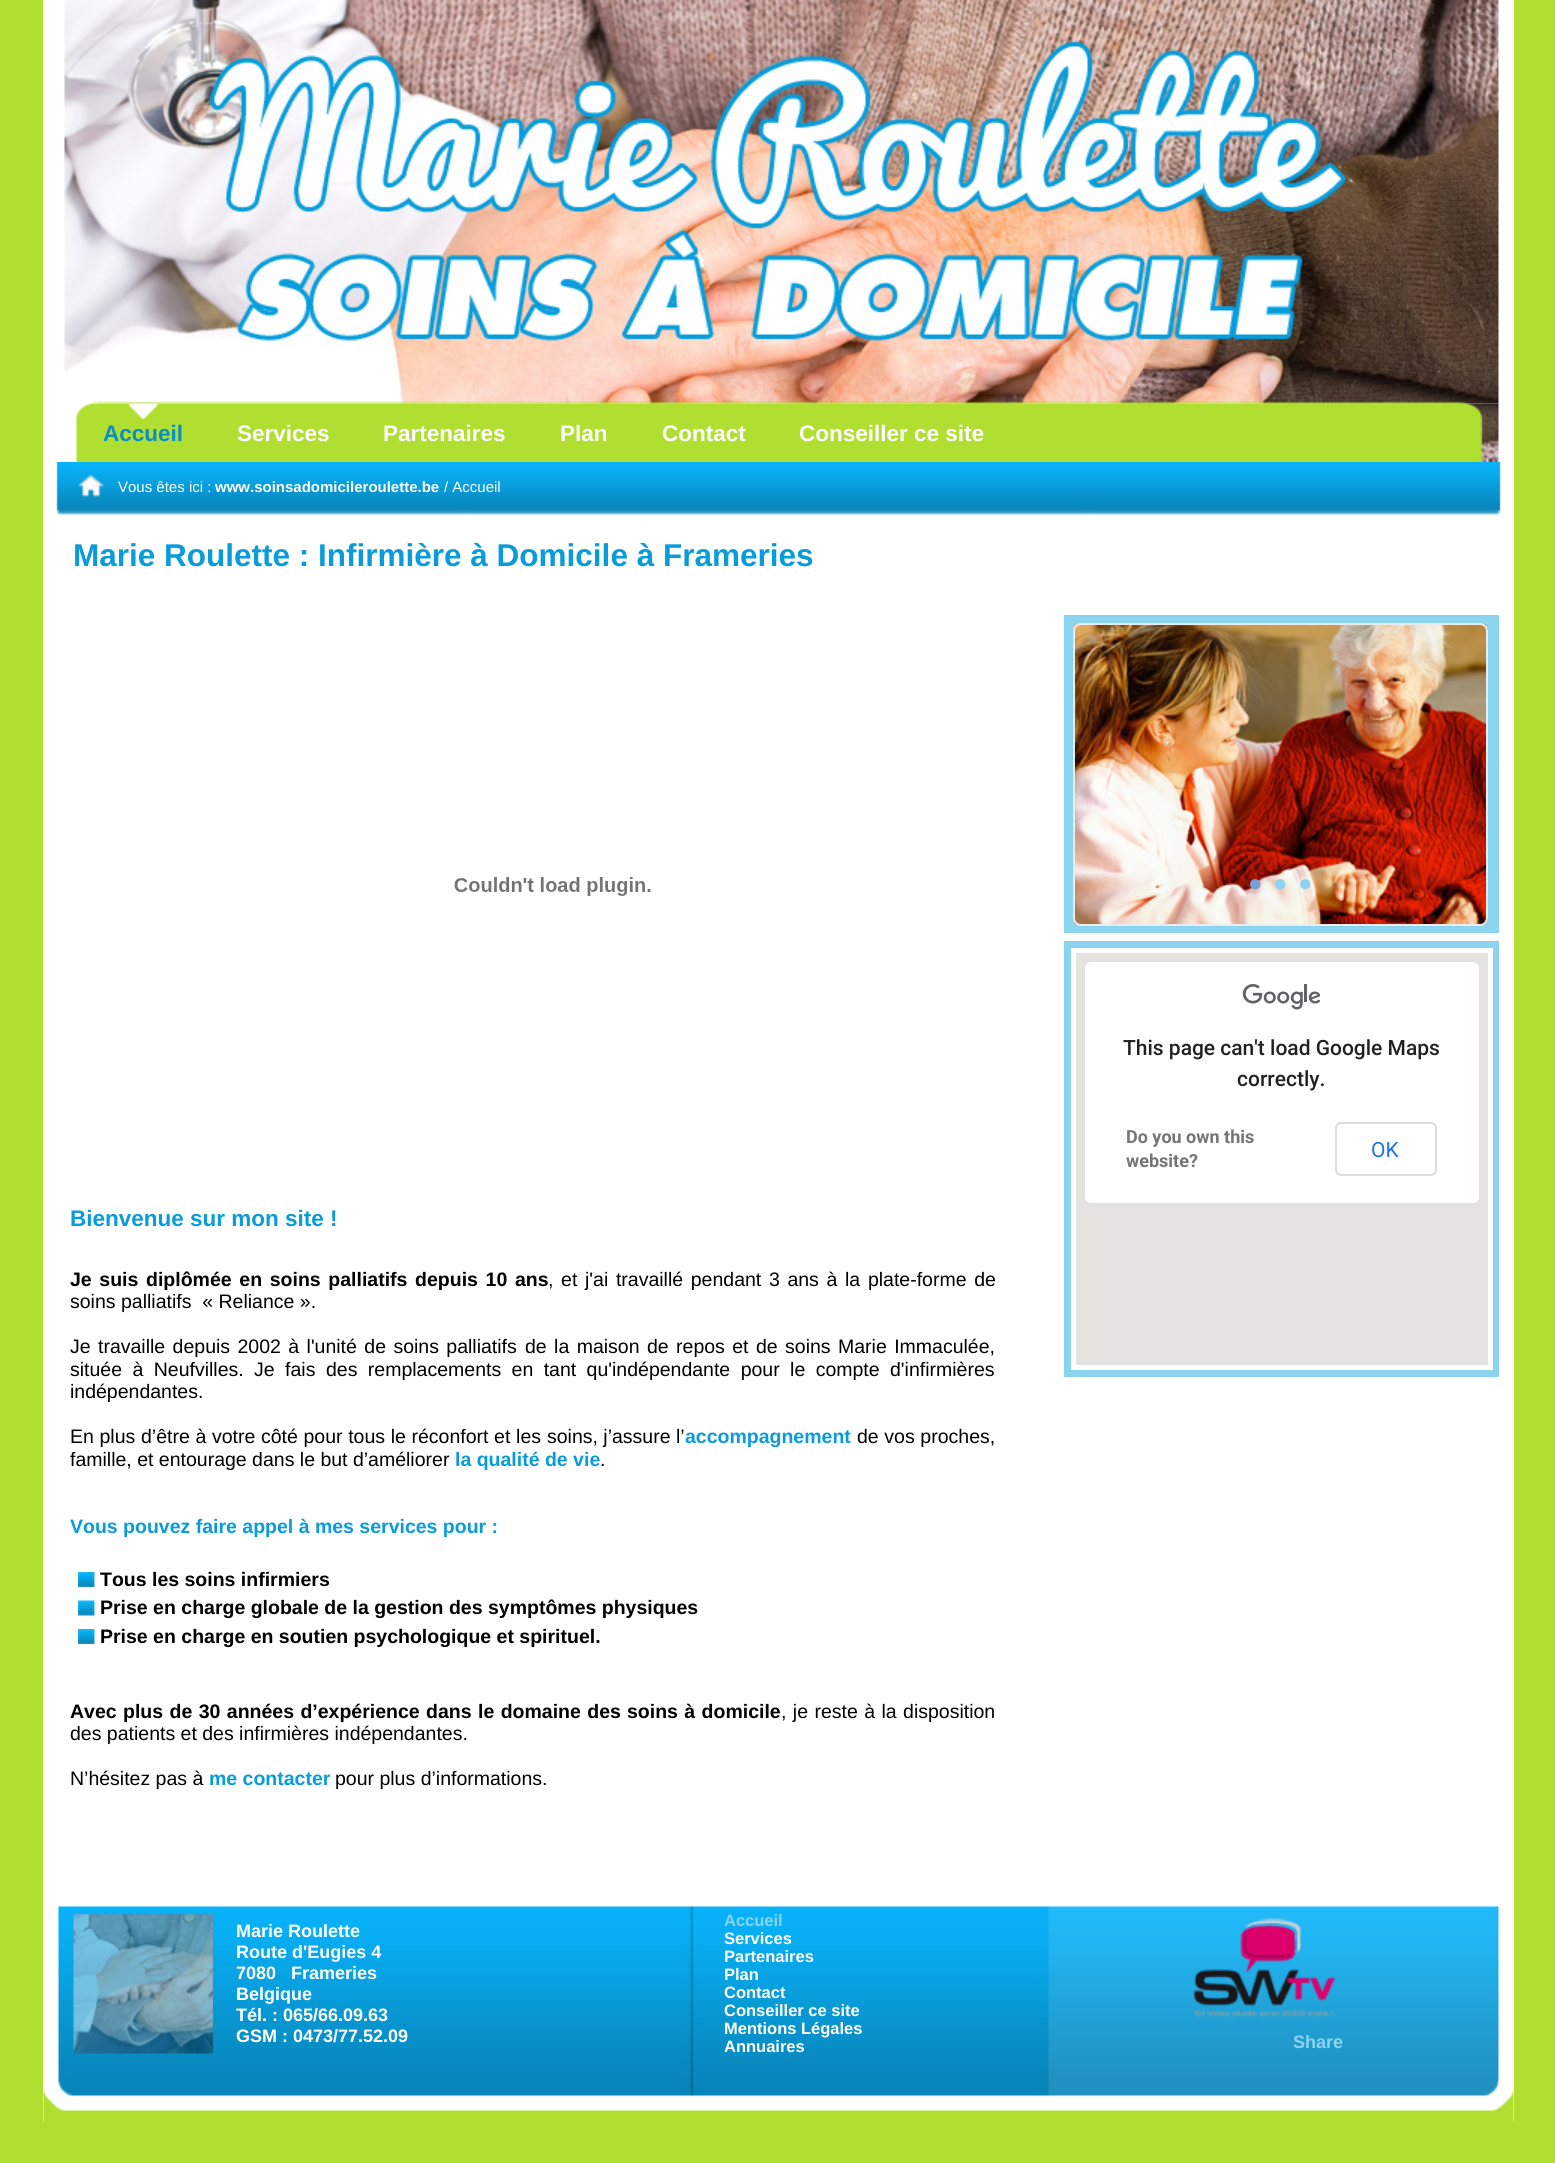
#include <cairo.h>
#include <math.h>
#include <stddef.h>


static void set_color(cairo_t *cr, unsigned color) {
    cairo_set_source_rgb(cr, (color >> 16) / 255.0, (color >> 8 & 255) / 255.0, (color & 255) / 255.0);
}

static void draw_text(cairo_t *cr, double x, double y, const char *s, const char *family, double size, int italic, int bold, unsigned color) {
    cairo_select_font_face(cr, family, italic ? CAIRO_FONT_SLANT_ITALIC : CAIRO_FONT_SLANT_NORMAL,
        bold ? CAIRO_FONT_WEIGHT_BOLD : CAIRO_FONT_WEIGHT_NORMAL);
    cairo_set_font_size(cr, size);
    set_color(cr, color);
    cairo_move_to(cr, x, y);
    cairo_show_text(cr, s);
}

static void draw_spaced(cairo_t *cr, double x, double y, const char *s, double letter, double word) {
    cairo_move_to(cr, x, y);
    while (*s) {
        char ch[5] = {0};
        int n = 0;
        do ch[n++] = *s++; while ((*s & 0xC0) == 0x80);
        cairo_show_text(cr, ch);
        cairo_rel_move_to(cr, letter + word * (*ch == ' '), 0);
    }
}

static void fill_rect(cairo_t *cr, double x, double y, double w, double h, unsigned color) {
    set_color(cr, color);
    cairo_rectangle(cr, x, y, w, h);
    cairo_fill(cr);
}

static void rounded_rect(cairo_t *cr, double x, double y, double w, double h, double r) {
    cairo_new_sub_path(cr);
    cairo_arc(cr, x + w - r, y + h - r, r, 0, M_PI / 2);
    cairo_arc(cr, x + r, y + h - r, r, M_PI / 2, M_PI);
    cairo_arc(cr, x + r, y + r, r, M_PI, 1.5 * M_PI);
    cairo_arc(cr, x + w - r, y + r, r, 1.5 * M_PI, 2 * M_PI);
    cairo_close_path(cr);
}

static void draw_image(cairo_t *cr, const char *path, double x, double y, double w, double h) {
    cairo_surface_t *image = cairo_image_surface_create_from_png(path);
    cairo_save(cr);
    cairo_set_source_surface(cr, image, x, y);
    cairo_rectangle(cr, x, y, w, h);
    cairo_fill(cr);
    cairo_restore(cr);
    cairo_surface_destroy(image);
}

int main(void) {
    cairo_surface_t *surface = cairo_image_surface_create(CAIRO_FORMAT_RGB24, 1555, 2163);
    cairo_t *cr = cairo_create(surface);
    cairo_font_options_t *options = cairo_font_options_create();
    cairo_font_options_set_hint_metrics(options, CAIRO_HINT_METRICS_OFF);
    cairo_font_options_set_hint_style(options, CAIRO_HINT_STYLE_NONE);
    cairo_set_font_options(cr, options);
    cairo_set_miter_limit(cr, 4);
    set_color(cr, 0xB0DF31);
    cairo_paint(cr);
    fill_rect(cr, 43, 0, 1471, 2121, 0xFFFFFF);
    draw_image(cr, "assets/img2.png", 76, 403, 1423, 59);
    draw_image(cr, "assets/img3.png", 129, 403, 29, 17);
    draw_image(cr, "assets/img1.png", 64, 0, 1435, 404);
    draw_text(cr, 103, 441, "Accueil", "Liberation Sans", 22.5, 0, 1, 0x088DC5);
    draw_text(cr, 237, 441, "Services", "Liberation Sans", 22.5, 0, 1, 0xFFFFFF);
    draw_text(cr, 383, 441, "Partenaires", "Liberation Sans", 22.5, 0, 1, 0xFFFFFF);
    draw_text(cr, 560, 441, "Plan", "Liberation Sans", 22.5, 0, 1, 0xFFFFFF);
    draw_text(cr, 662, 441, "Contact", "Liberation Sans", 22.5, 0, 1, 0xFFFFFF);
    draw_text(cr, 799, 441, "Conseiller ce site", "Liberation Sans", 22.5, 0, 1, 0xFFFFFF);
    draw_image(cr, "assets/img4.png", 56, 462, 1445, 53);
    draw_text(cr, 118, 492, "Vous êtes ici :", "Liberation Sans", 15, 0, 0, 0xFFFFFF);
    draw_text(cr, 215, 492, "www.soinsadomicileroulette.be", "Liberation Sans", 15, 0, 1, 0xFFFFFF);
    draw_text(cr, 444, 492, "/ Accueil", "Liberation Sans", 15, 0, 0, 0xFFFFFF);
    draw_text(cr, 73, 566, "Marie Roulette : Infirmière à Domicile à Frameries", "Liberation Sans", 31.5, 0, 1, 0x089CDA);
    draw_image(cr, "assets/img5.png", 454, 877, 197, 19);
    fill_rect(cr, 1064, 615, 435, 318, 0x8BD4EF);
    draw_image(cr, "assets/img6.png", 1074, 624, 414, 300);
    rounded_rect(cr, 1074, 624, 413, 301, 7);
    set_color(cr, 0xECECEC);
    cairo_stroke(cr);
    draw_text(cr, 1248, 891, "●", "Liberation Sans", 24, 0, 1, 0x73A0D7);
    draw_text(cr, 1273, 891, "●", "Liberation Sans", 24, 0, 1, 0x8BD4EF);
    draw_text(cr, 1298, 891, "●", "Liberation Sans", 24, 0, 1, 0x8BD4EF);
    fill_rect(cr, 1064, 941, 435, 436, 0x8BD4EF);
    cairo_rectangle(cr, 1073.5, 950.5, 417, 417);
    set_color(cr, 0xFFFFFF);
    cairo_set_line_width(cr, 5);
    cairo_stroke(cr);
    fill_rect(cr, 1076, 953, 412, 412, 0xE5E3DF);
    set_color(cr, 0xFFFFFF);
    rounded_rect(cr, 1083, 960, 398, 245, 8);
    cairo_fill(cr);
    rounded_rect(cr, 1084, 961, 396, 243, 7);
    cairo_set_source_rgba(cr, 0, 0, 0, 0.12);
    cairo_set_line_width(cr, 2);
    cairo_stroke(cr);
    draw_image(cr, "assets/img7.png", 1242, 984, 78, 26);
    draw_text(cr, 1123, 1055, "This page can't load Google Maps", "Roboto Medium", 21, 0, 0, 0x212121);
    draw_text(cr, 1237, 1086, "correctly.", "Roboto Medium", 21, 0, 0, 0x212121);
    draw_text(cr, 1126, 1143, "Do you own this", "Roboto", 18, 0, 1, 0x757575);
    draw_text(cr, 1126, 1167, "website?", "Roboto", 18, 0, 1, 0x757575);
    rounded_rect(cr, 1336, 1123, 100, 52, 5);
    set_color(cr, 0xDADCE0);
    cairo_stroke(cr);
    draw_text(cr, 1371, 1157, "OK", "Roboto", 21, 0, 0, 0x1A73E8);
    draw_text(cr, 70, 1226, "Bienvenue sur mon site !", "Liberation Sans", 22.5, 0, 1, 0x089CDA);
    cairo_set_font_size(cr, 19.5);
    set_color(cr, 0x000000);
    draw_spaced(cr, 70, 1286, "Je suis diplômée en soins palliatifs depuis 10 ans", 0, 2.25);
    cairo_select_font_face(cr, "Liberation Sans", CAIRO_FONT_SLANT_NORMAL, CAIRO_FONT_WEIGHT_NORMAL);
    draw_spaced(cr, 548, 1286, ", et", 0, 2.25);
    draw_spaced(cr, 585, 1286, "j'ai travaillé pendant 3 ans à la plate-forme de", 0, 2.25);
    draw_text(cr, 70, 1308, "soins palliatifs  « Reliance ».", "Liberation Sans", 19.5, 0, 0, 0x000000);
    draw_spaced(cr, 70, 1353, "Je travaille depuis 2002 à l'unité de soins palliatifs", 0, 2);
    draw_spaced(cr, 525, 1353, "de la maison de repos et de soins Marie Immaculée,", 0, 2);
    draw_spaced(cr, 70, 1376, "située à Neufvilles. Je fais", 0, 5);
    draw_spaced(cr, 326, 1376, "des remplacements en tant qu'indépendante pour le compte d'infirmières", 0, 5);
    draw_text(cr, 70, 1398, "indépendantes.", "Liberation Sans", 19.5, 0, 0, 0x000000);
    draw_spaced(cr, 70, 1443, "En plus d’être à votre côté pour tous le réconfort et les", 0, 0.25);
    draw_text(cr, 547, 1443, "soins, j’assure l’", "Liberation Sans", 19.5, 0, 0, 0x000000);
    draw_text(cr, 685, 1443, "accompagnement", "Liberation Sans", 19.5, 0, 1, 0x089CDA);
    cairo_select_font_face(cr, "Liberation Sans", CAIRO_FONT_SLANT_NORMAL, CAIRO_FONT_WEIGHT_NORMAL);
    set_color(cr, 0x000000);
    draw_spaced(cr, 857, 1443, "de vos proches,", 0, 0.25);
    draw_text(cr, 70, 1466, "famille, et entourage dans le but d’améliorer", "Liberation Sans", 19.5, 0, 0, 0x000000);
    draw_text(cr, 455, 1466, "la qualité de vie", "Liberation Sans", 19.5, 0, 1, 0x089CDA);
    draw_text(cr, 600, 1466, ".", "Liberation Sans", 19.5, 0, 0, 0x000000);
    draw_text(cr, 70, 1533, "Vous pouvez faire appel à mes services pour :", "Liberation Sans", 19.5, 0, 1, 0x089CDA);
    draw_image(cr, "assets/img8.png", 78, 1572, 17, 15);
    draw_text(cr, 100, 1586, "Tous les soins infirmiers", "Liberation Sans", 19.5, 0, 1, 0x000000);
    draw_image(cr, "assets/img9.png", 78, 1600, 17, 16);
    draw_text(cr, 100, 1614, "Prise en charge globale de la gestion des symptômes physiques", "Liberation Sans", 19.5, 0, 1, 0x000000);
    draw_image(cr, "assets/img8.png", 78, 1629, 17, 15);
    draw_text(cr, 100, 1643, "Prise en charge en soutien psychologique et spirituel.", "Liberation Sans", 19.5, 0, 1, 0x000000);
    draw_spaced(cr, 70, 1718, "Avec plus de 30 années d’expérience dans le domaine des", 0, 1);
    draw_spaced(cr, 627, 1718, "soins à domicile", 0, 1);
    cairo_select_font_face(cr, "Liberation Sans", CAIRO_FONT_SLANT_NORMAL, CAIRO_FONT_WEIGHT_NORMAL);
    draw_spaced(cr, 781, 1718, ", je reste à la disposition", 0, 1);
    draw_text(cr, 70, 1740, "des patients et des infirmières indépendantes.", "Liberation Sans", 19.5, 0, 0, 0x000000);
    draw_text(cr, 70, 1785, "N’hésitez pas à", "Liberation Sans", 19.5, 0, 0, 0x000000);
    draw_text(cr, 209, 1785, "me contacter", "Liberation Sans", 19.5, 0, 1, 0x089CDA);
    draw_text(cr, 335, 1785, "pour plus d’informations.", "Liberation Sans", 19.5, 0, 0, 0x000000);
    draw_image(cr, "assets/img10.png", 43, 1905, 1471, 216);
    draw_image(cr, "assets/img11.png", 73, 1914, 140, 140);
    draw_text(cr, 236, 1937, "Marie Roulette", "Liberation Sans", 18, 0, 1, 0xFFFFFF);
    draw_text(cr, 236, 1958, "Route d'Eugies 4", "Liberation Sans", 18, 0, 1, 0xFFFFFF);
    draw_text(cr, 236, 1979, "7080", "Liberation Sans", 18, 0, 1, 0xFFFFFF);
    draw_text(cr, 291, 1979, "Frameries", "Liberation Sans", 18, 0, 1, 0xFFFFFF);
    draw_text(cr, 236, 2000, "Belgique", "Liberation Sans", 18, 0, 1, 0xFFFFFF);
    draw_text(cr, 236, 2021, "Tél. : 065/66.09.63", "Liberation Sans", 18, 0, 1, 0xFFFFFF);
    draw_text(cr, 236, 2042, "GSM : 0473/77.52.09", "Liberation Sans", 18, 0, 1, 0xFFFFFF);
    draw_text(cr, 724, 1926, "Accueil", "Liberation Sans", 16.5, 0, 1, 0x8BD4EF);
    draw_text(cr, 724, 1944, "Services", "Liberation Sans", 16.5, 0, 1, 0xFFFFFF);
    draw_text(cr, 724, 1962, "Partenaires", "Liberation Sans", 16.5, 0, 1, 0xFFFFFF);
    draw_text(cr, 724, 1980, "Plan", "Liberation Sans", 16.5, 0, 1, 0xFFFFFF);
    draw_text(cr, 724, 1998, "Contact", "Liberation Sans", 16.5, 0, 1, 0xFFFFFF);
    draw_text(cr, 724, 2016, "Conseiller ce site", "Liberation Sans", 16.5, 0, 1, 0xFFFFFF);
    draw_text(cr, 724, 2034, "Mentions Légales", "Liberation Sans", 16.5, 0, 1, 0xFFFFFF);
    draw_text(cr, 724, 2052, "Annuaires", "Liberation Sans", 16.5, 0, 1, 0xFFFFFF);
    draw_image(cr, "assets/img12.png", 1193, 1918, 143, 100);
    draw_text(cr, 1293, 2048, "Share", "Liberation Sans", 18, 0, 1, 0x8BD4EF);
    cairo_surface_write_to_png(surface, "output.png");
    cairo_font_options_destroy(options);
    cairo_destroy(cr);
    cairo_surface_destroy(surface);
    return 0;
}
